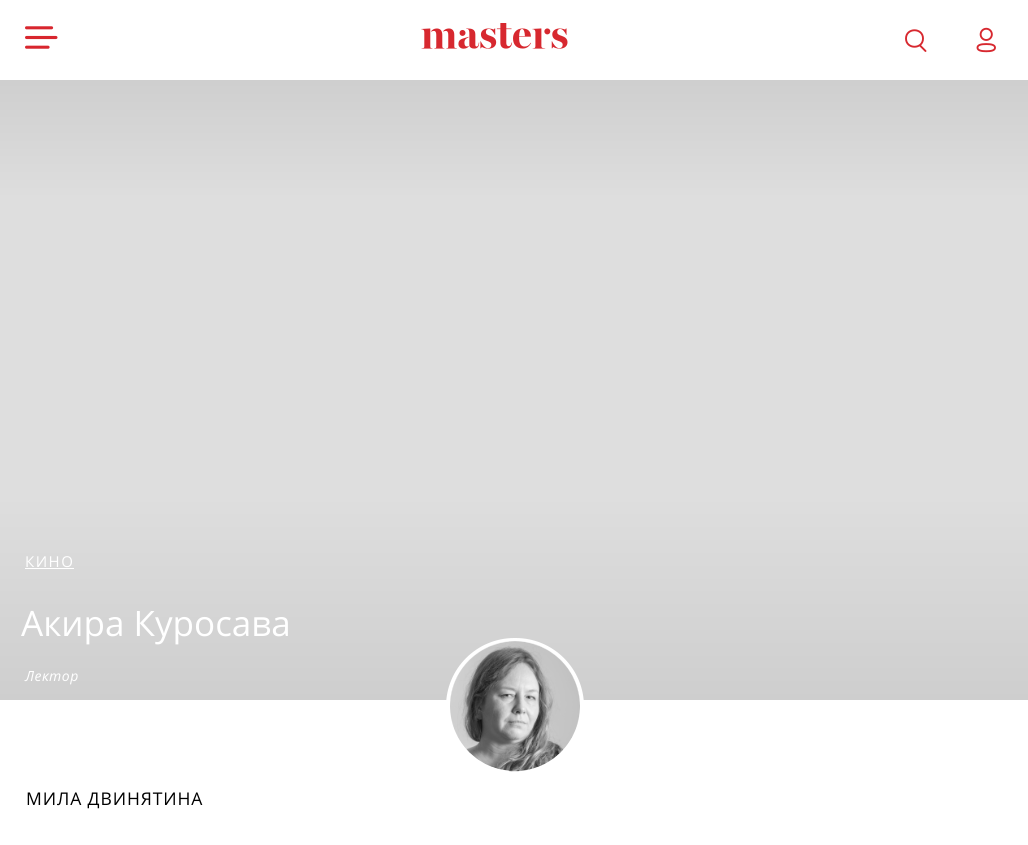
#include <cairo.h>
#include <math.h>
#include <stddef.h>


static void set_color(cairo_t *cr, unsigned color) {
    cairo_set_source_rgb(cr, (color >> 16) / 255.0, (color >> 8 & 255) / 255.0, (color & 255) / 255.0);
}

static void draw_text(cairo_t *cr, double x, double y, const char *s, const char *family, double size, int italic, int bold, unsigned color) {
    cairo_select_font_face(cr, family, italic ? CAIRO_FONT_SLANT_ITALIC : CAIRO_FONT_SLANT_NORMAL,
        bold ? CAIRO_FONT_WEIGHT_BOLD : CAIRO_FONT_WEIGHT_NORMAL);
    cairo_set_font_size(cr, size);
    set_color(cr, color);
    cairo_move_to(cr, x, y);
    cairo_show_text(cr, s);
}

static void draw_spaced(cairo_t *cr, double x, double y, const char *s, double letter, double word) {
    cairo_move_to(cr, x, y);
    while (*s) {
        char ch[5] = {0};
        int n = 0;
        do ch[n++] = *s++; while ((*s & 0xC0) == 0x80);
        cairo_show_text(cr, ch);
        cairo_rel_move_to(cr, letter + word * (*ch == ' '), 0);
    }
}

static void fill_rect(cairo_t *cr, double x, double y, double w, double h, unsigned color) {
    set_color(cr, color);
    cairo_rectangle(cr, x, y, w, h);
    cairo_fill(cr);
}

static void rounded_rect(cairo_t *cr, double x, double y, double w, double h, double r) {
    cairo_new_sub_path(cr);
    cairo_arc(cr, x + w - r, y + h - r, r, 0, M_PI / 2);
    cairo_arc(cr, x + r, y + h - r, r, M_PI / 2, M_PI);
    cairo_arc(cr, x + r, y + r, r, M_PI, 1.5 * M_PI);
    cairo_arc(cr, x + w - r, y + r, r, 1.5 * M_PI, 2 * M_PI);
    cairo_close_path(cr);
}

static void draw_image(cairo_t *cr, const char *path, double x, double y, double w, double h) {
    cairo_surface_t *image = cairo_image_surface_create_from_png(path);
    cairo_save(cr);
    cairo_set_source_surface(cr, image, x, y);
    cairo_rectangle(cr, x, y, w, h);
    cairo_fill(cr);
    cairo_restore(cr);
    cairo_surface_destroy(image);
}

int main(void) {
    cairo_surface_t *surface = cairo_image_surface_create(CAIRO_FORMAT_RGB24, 1028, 845);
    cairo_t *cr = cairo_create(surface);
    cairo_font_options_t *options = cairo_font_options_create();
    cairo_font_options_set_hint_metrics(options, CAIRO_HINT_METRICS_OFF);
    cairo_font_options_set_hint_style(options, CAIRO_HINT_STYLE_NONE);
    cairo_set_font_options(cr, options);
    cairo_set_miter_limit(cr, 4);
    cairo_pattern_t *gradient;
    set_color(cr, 0xFFFFFF);
    cairo_paint(cr);
    draw_image(cr, "assets/img1.png", 25, 26, 33, 23);
    draw_image(cr, "assets/img2.png", 421, 23, 147, 26);
    cairo_new_path(cr);
    cairo_move_to(cr, 920, 45.5);
    cairo_line_to(cr, 925.5, 51);
    cairo_move_to(cr, 923, 38.5);
    cairo_curve_to(cr, 923, 49.5, 906, 49.5, 906, 38.5);
    cairo_curve_to(cr, 906, 27.5, 923, 27.5, 923, 38.5);
    cairo_close_path(cr);
    set_color(cr, 0xD7282F);
    cairo_set_line_width(cr, 1.9);
    cairo_set_line_cap(cr, CAIRO_LINE_CAP_ROUND);
    cairo_set_line_join(cr, CAIRO_LINE_JOIN_ROUND);
    cairo_stroke(cr);
    draw_image(cr, "assets/img3.png", 976, 27, 20, 26);
    gradient = cairo_pattern_create_linear(514, 700, 514, 75);
    cairo_pattern_add_color_stop_rgba(gradient, 0, 0.808, 0.808, 0.808, 1);
    cairo_pattern_add_color_stop_rgba(gradient, 0.33, 0.871, 0.871, 0.871, 1);
    cairo_pattern_add_color_stop_rgba(gradient, 0.8, 0.871, 0.871, 0.871, 1);
    cairo_pattern_add_color_stop_rgba(gradient, 1, 0.808, 0.808, 0.808, 1);
    cairo_set_source(cr, gradient);
    cairo_pattern_destroy(gradient);
    cairo_rectangle(cr, 0, 80, 1028, 620);
    cairo_fill(cr);
    cairo_select_font_face(cr, "Open Sans", CAIRO_FONT_SLANT_NORMAL, CAIRO_FONT_WEIGHT_NORMAL);
    cairo_set_font_size(cr, 15);
    set_color(cr, 0xFFFFFF);
    draw_spaced(cr, 25, 567, "КИНО", 1.5, 0);
    fill_rect(cr, 25, 568, 49, 1, 0xFFFFFF);
    draw_text(cr, 21, 636, "Акира Куросава", "Open Sans", 35, 0, 0, 0xFFFFFF);
    cairo_select_font_face(cr, "Open Sans", CAIRO_FONT_SLANT_ITALIC, CAIRO_FONT_WEIGHT_NORMAL);
    cairo_set_font_size(cr, 14);
    draw_spaced(cr, 25, 681, "Лектор", 0.5, 0);
    rounded_rect(cr, 448, 640, 134, 133, 66.5);
    cairo_set_line_width(cr, 4);
    cairo_set_line_cap(cr, CAIRO_LINE_CAP_BUTT);
    cairo_set_line_join(cr, CAIRO_LINE_JOIN_MITER);
    cairo_stroke(cr);
    set_color(cr, 0xE9E9E9);
    cairo_arc(cr, 515, 706, 65, 0, 2 * M_PI);
    cairo_fill(cr);
    draw_image(cr, "assets/img4.png", 450, 641, 130, 131);
    cairo_select_font_face(cr, "Open Sans", CAIRO_FONT_SLANT_NORMAL, CAIRO_FONT_WEIGHT_NORMAL);
    cairo_set_font_size(cr, 17.5);
    set_color(cr, 0x000000);
    draw_spaced(cr, 26, 805, "МИЛА ДВИНЯТИНА", 0.9, 0);
    cairo_surface_write_to_png(surface, "output.png");
    cairo_font_options_destroy(options);
    cairo_destroy(cr);
    cairo_surface_destroy(surface);
    return 0;
}
